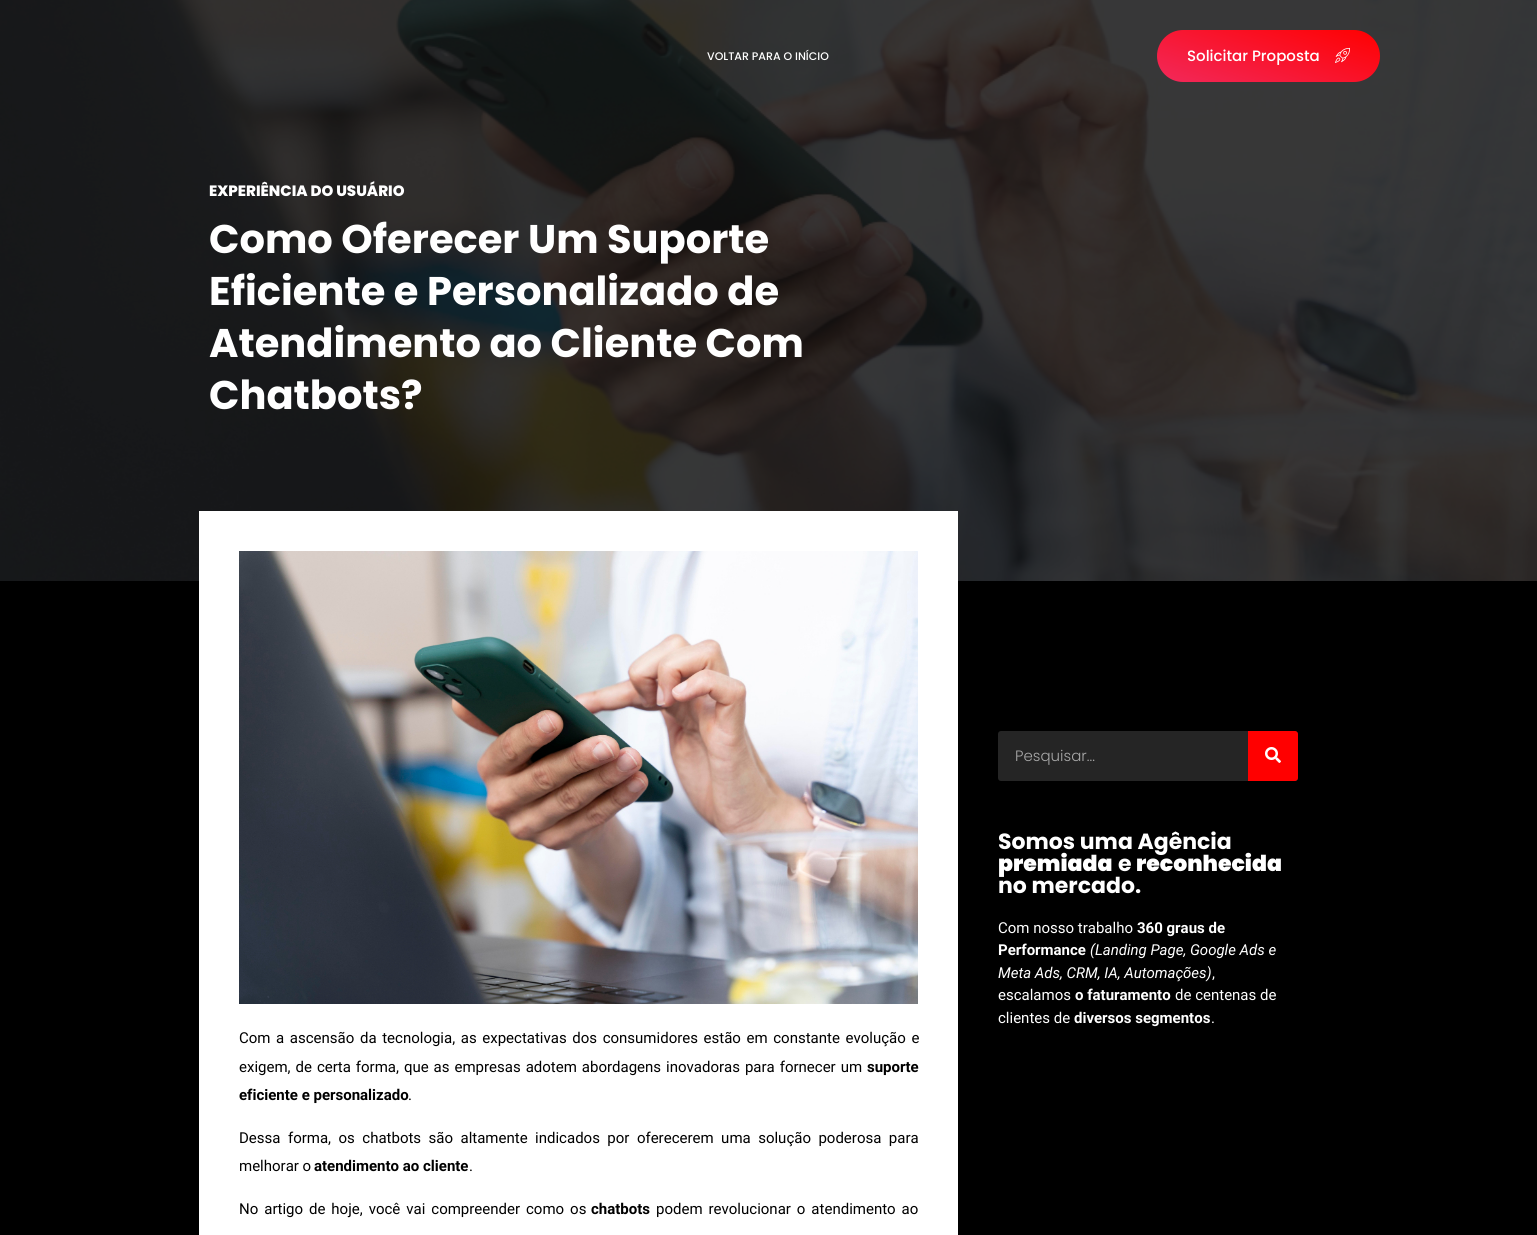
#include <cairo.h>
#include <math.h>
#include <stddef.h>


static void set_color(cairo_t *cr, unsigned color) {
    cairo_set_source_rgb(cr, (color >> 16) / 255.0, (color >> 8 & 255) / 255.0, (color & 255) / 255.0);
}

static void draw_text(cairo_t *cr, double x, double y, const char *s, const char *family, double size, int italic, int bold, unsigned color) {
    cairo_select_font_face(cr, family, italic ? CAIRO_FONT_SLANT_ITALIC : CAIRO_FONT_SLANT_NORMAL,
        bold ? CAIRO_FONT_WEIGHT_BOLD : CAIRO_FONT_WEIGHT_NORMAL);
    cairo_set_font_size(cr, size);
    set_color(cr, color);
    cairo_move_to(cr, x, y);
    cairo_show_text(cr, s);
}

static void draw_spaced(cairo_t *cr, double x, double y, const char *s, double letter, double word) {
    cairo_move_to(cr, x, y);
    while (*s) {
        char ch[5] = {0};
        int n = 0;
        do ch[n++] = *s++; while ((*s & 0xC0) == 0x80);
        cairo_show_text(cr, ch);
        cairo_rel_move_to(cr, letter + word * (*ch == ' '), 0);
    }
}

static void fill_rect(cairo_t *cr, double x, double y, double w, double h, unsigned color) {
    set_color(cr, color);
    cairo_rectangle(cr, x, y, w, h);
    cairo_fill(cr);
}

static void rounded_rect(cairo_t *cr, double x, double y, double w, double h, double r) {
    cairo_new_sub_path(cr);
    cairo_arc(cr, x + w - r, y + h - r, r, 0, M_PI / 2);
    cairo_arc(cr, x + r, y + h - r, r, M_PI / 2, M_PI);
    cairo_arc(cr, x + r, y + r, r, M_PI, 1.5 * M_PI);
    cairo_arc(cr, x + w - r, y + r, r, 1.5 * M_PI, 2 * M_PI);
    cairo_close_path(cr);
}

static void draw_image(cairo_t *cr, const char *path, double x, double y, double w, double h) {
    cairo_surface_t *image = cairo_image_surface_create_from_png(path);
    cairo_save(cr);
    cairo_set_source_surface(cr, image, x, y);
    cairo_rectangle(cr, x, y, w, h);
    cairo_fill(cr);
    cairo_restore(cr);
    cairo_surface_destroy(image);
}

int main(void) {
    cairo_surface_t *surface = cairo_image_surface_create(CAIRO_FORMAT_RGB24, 1537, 1235);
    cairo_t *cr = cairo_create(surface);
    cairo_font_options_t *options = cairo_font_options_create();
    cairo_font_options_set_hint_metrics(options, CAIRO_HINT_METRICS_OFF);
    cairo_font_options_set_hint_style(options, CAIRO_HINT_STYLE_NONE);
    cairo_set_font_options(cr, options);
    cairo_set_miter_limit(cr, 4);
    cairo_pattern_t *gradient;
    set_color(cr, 0xFFFFFF);
    cairo_paint(cr);
    draw_image(cr, "assets/img2.png", 0, 0, 1537, 581);
    draw_text(cr, 707, 60, "VOLTAR PARA O INÍCIO", "Poppins Medium", 11, 0, 0, 0xFFFFFF);
    gradient = cairo_pattern_create_linear(1288, -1.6, 1249, 114);
    cairo_pattern_add_color_stop_rgba(gradient, 0, 1, 0, 0, 1);
    cairo_pattern_add_color_stop_rgba(gradient, 1, 0.949, 0.161, 0.357, 1);
    cairo_set_source(cr, gradient);
    cairo_pattern_destroy(gradient);
    rounded_rect(cr, 1157, 30, 223, 52, 26);
    cairo_fill(cr);
    draw_text(cr, 1187, 61, "Solicitar Proposta", "Poppins Medium", 15, 0, 0, 0xFFFFFF);
    draw_image(cr, "assets/img1.png", 1335, 47, 15, 16);
    draw_text(cr, 209, 196, "EXPERIÊNCIA DO USUÁRIO", "Poppins ExtraBold", 15, 0, 0, 0xFFFFFF);
    draw_text(cr, 209, 253, "Como Oferecer Um Suporte", "Poppins", 40, 0, 1, 0xFFFFFF);
    draw_text(cr, 209, 305, "Eficiente e Personalizado de", "Poppins", 40, 0, 1, 0xFFFFFF);
    draw_text(cr, 209, 357, "Atendimento ao Cliente Com", "Poppins", 40, 0, 1, 0xFFFFFF);
    draw_text(cr, 209, 409, "Chatbots?", "Poppins", 40, 0, 1, 0xFFFFFF);
    fill_rect(cr, 0, 581, 1537, 654, 0x000000);
    set_color(cr, 0x252525);
    rounded_rect(cr, 998, 731, 300, 50, 3);
    cairo_fill(cr);
    draw_text(cr, 1015, 761, "Pesquisar...", "Poppins Light", 15, 0, 0, 0xA8A8A8);
    set_color(cr, 0xFF0000);
    cairo_new_path(cr);
    cairo_move_to(cr, 1248, 731);
    cairo_line_to(cr, 1295, 731);
    cairo_curve_to(cr, 1296.5, 731, 1298, 732.5, 1298, 734);
    cairo_line_to(cr, 1298, 778);
    cairo_curve_to(cr, 1298, 779.5, 1296.5, 781, 1295, 781);
    cairo_line_to(cr, 1248, 781);
    cairo_close_path(cr);
    cairo_fill(cr);
    draw_image(cr, "assets/img3.png", 1265, 747, 16, 16);
    draw_text(cr, 998, 849, "Somos uma Agência", "Poppins", 22, 0, 1, 0xFFFFFF);
    draw_text(cr, 998, 871, "premiada", "Poppins Black", 22, 0, 0, 0xFFFFFF);
    draw_text(cr, 1118, 871, "e", "Poppins", 22, 0, 1, 0xFFFFFF);
    draw_text(cr, 1136, 871, "reconhecida", "Poppins Black", 22, 0, 0, 0xFFFFFF);
    draw_text(cr, 998, 893, "no mercado.", "Poppins", 22, 0, 1, 0xFFFFFF);
    draw_text(cr, 998, 933, "Com nosso trabalho", "Roboto", 15, 0, 0, 0xFFFFFF);
    draw_text(cr, 1137, 933, "360 graus de", "Roboto", 15, 0, 1, 0xFFFFFF);
    draw_text(cr, 998, 955, "Performance", "Roboto", 15, 0, 1, 0xFFFFFF);
    draw_text(cr, 1090, 955, "(Landing Page, Google Ads e", "Roboto", 15, 1, 0, 0xFFFFFF);
    draw_text(cr, 998, 978, "Meta Ads, CRM, IA, Automações)", "Roboto", 15, 1, 0, 0xFFFFFF);
    draw_text(cr, 1212, 978, ",", "Roboto", 15, 0, 0, 0xFFFFFF);
    draw_text(cr, 998, 1000, "escalamos", "Roboto", 15, 0, 0, 0xFFFFFF);
    draw_text(cr, 1075, 1000, "o faturamento", "Roboto", 15, 0, 1, 0xFFFFFF);
    draw_text(cr, 1175, 1000, "de centenas de", "Roboto", 15, 0, 0, 0xFFFFFF);
    draw_text(cr, 998, 1023, "clientes de", "Roboto", 15, 0, 0, 0xFFFFFF);
    draw_text(cr, 1074, 1023, "diversos segmentos", "Roboto", 15, 0, 1, 0xFFFFFF);
    draw_text(cr, 1211, 1023, ".", "Roboto", 15, 0, 0, 0xFFFFFF);
    fill_rect(cr, 199, 511, 759, 724, 0xFFFFFF);
    draw_image(cr, "assets/img4.png", 239, 551, 679, 453);
    set_color(cr, 0x000000);
    draw_spaced(cr, 239, 1043, "Com a ascensão da tecnologia, as expectativas dos consumidores estão em constante evolução e", 0, 1.9);
    draw_spaced(cr, 239, 1072, "exigem, de certa forma, que as empresas adotem abordagens inovadoras para fornecer um", 0, 1.25);
    draw_text(cr, 867, 1072, "suporte", "Roboto", 15, 0, 1, 0x000000);
    draw_text(cr, 239, 1100, "eficiente e personalizado", "Roboto", 15, 0, 1, 0x000000);
    draw_text(cr, 408, 1100, ".", "Roboto", 15, 0, 0, 0x000000);
    draw_spaced(cr, 239, 1143, "Dessa forma, os chatbots são altamente indicados por oferecerem uma solução poderosa para", 0, 3.75);
    draw_text(cr, 239, 1171, "melhorar o", "Roboto", 15, 0, 0, 0x000000);
    draw_text(cr, 314, 1171, "atendimento ao cliente", "Roboto", 15, 0, 1, 0x000000);
    draw_text(cr, 469, 1171, ".", "Roboto", 15, 0, 0, 0x000000);
    draw_spaced(cr, 239, 1214, "No artigo de hoje, você vai compreender como os", 0, 2.25);
    draw_text(cr, 591, 1214, "chatbots", "Roboto", 15, 0, 1, 0x000000);
    cairo_select_font_face(cr, "Roboto", CAIRO_FONT_SLANT_NORMAL, CAIRO_FONT_WEIGHT_NORMAL);
    draw_spaced(cr, 656, 1214, "podem revolucionar o atendimento ao", 0, 2.25);
    cairo_surface_write_to_png(surface, "output.png");
    cairo_font_options_destroy(options);
    cairo_destroy(cr);
    cairo_surface_destroy(surface);
    return 0;
}
